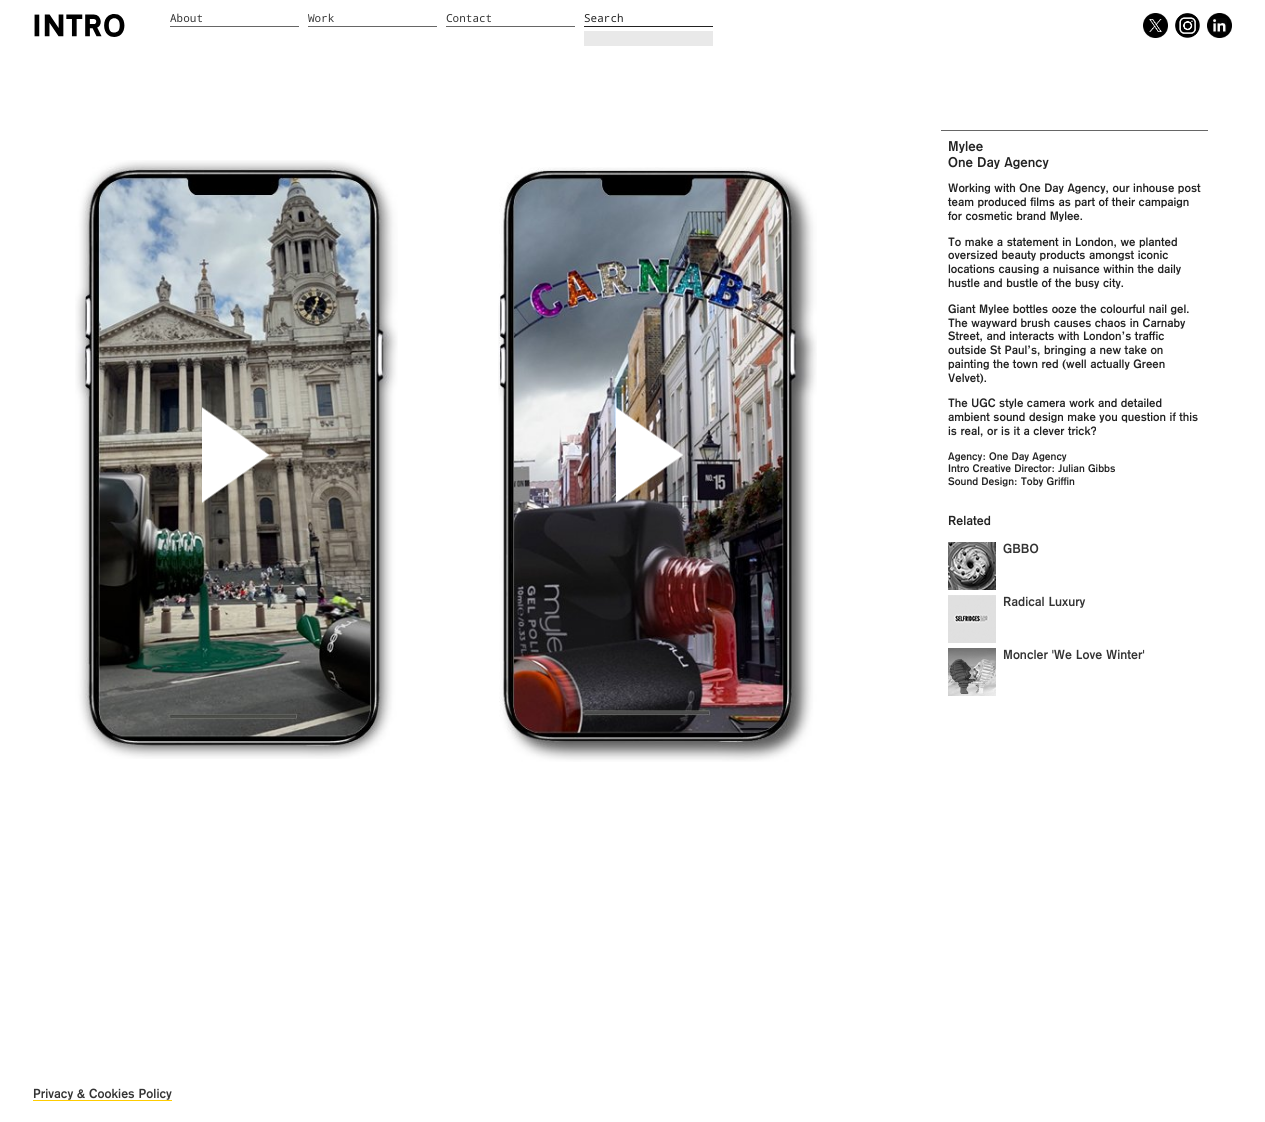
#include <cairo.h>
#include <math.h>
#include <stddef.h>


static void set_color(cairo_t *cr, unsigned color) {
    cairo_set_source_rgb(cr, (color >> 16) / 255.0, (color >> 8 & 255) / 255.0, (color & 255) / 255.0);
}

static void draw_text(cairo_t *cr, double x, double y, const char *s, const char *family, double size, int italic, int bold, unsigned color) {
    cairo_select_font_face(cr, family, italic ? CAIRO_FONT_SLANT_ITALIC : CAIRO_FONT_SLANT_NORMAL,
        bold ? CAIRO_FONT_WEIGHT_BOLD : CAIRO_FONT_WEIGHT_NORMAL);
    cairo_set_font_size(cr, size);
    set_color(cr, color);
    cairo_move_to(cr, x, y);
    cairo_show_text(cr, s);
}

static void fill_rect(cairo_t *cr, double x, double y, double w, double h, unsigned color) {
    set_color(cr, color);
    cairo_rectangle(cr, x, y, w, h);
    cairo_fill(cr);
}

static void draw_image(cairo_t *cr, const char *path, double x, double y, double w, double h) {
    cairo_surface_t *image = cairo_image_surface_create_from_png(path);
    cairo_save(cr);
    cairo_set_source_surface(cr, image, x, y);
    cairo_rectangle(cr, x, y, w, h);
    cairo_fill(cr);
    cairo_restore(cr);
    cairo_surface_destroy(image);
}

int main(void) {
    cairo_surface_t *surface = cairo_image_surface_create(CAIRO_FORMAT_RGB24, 1265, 1122);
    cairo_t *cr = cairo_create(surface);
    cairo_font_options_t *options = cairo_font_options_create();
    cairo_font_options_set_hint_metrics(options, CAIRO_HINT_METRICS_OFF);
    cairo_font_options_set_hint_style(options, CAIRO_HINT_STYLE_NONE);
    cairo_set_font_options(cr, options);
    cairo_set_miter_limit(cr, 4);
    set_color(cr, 0xFFFFFF);
    cairo_paint(cr);
    draw_image(cr, "assets/img1.png", 34, 14, 91, 23);
    fill_rect(cr, 170, 26, 129, 1, 0x666666);
    draw_text(cr, 170, 22, "About", "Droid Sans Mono", 11, 0, 0, 0x333333);
    fill_rect(cr, 308, 26, 129, 1, 0x666666);
    draw_text(cr, 308, 22, "Work", "Droid Sans Mono", 11, 0, 0, 0x333333);
    fill_rect(cr, 446, 26, 129, 1, 0x666666);
    draw_text(cr, 446, 22, "Contact", "Droid Sans Mono", 11, 0, 0, 0x333333);
    draw_text(cr, 584, 22, "Search", "Droid Sans Mono", 11, 0, 0, 0x222222);
    fill_rect(cr, 584, 26, 129, 1, 0x222222);
    fill_rect(cr, 584, 31, 129, 15, 0xE9E9E9);
    fill_rect(cr, 1143, 13, 25, 25, 0x000000);
    draw_image(cr, "assets/img2.png", 1143, 13, 25, 25);
    fill_rect(cr, 1175, 13, 25, 25, 0x000000);
    draw_image(cr, "assets/img3.png", 1175, 13, 25, 25);
    fill_rect(cr, 1207, 13, 25, 25, 0x000000);
    draw_image(cr, "assets/img4.png", 1207, 13, 25, 25);
    draw_image(cr, "assets/img5.png", 75, 160, 323, 599);
    draw_image(cr, "assets/img6.png", 202, 407, 67, 96);
    draw_image(cr, "assets/img7.png", 498, 167, 319, 595);
    draw_image(cr, "assets/img8.png", 616, 407, 67, 96);
    fill_rect(cr, 941, 130, 267, 1, 0x666666);
    draw_text(cr, 948, 151, "Mylee", "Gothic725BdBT", 14, 0, 0, 0x222222);
    draw_text(cr, 948, 167, "One Day Agency", "Gothic725BdBT", 14, 0, 0, 0x222222);
    draw_text(cr, 948, 192, "Working with One Day Agency, our inhouse post", "Gothic725BdBT", 12, 0, 0, 0x222222);
    draw_text(cr, 948, 206, "team produced films as part of their campaign", "Gothic725BdBT", 12, 0, 0, 0x222222);
    draw_text(cr, 948, 220, "for cosmetic brand Mylee.", "Gothic725BdBT", 12, 0, 0, 0x222222);
    draw_text(cr, 948, 246, "To make a statement in London, we planted", "Gothic725BdBT", 12, 0, 0, 0x222222);
    draw_text(cr, 948, 259, "oversized beauty products amongst iconic", "Gothic725BdBT", 12, 0, 0, 0x222222);
    draw_text(cr, 948, 273, "locations causing a nuisance within the daily", "Gothic725BdBT", 12, 0, 0, 0x222222);
    draw_text(cr, 948, 287, "hustle and bustle of the busy city.", "Gothic725BdBT", 12, 0, 0, 0x222222);
    draw_text(cr, 948, 313, "Giant Mylee bottles ooze the colourful nail gel.", "Gothic725BdBT", 12, 0, 0, 0x222222);
    draw_text(cr, 948, 327, "The wayward brush causes chaos in Carnaby", "Gothic725BdBT", 12, 0, 0, 0x222222);
    draw_text(cr, 948, 340, "Street, and interacts with London’s traffic", "Gothic725BdBT", 12, 0, 0, 0x222222);
    draw_text(cr, 948, 354, "outside St Paul’s, bringing a new take on", "Gothic725BdBT", 12, 0, 0, 0x222222);
    draw_text(cr, 948, 368, "painting the town red (well actually Green", "Gothic725BdBT", 12, 0, 0, 0x222222);
    draw_text(cr, 948, 382, "Velvet).", "Gothic725BdBT", 12, 0, 0, 0x222222);
    draw_text(cr, 948, 407, "The UGC style camera work and detailed", "Gothic725BdBT", 12, 0, 0, 0x222222);
    draw_text(cr, 948, 421, "ambient sound design make you question if this", "Gothic725BdBT", 12, 0, 0, 0x222222);
    draw_text(cr, 948, 435, "is real, or is it a clever trick?", "Gothic725BdBT", 12, 0, 0, 0x222222);
    draw_text(cr, 948, 460, "Agency: One Day Agency", "Gothic725BdBT", 10.8, 0, 0, 0x222222);
    draw_text(cr, 948, 472, "Intro Creative Director: Julian Gibbs", "Gothic725BdBT", 10.8, 0, 0, 0x222222);
    draw_text(cr, 948, 485, "Sound Design: Toby Griffin", "Gothic725BdBT", 10.8, 0, 0, 0x222222);
    draw_text(cr, 948, 525, "Related", "Gothic725BdBT", 13, 0, 0, 0x222222);
    draw_image(cr, "assets/img9.png", 948, 542, 48, 48);
    draw_text(cr, 1003, 553, "GBBO", "Gothic725BdBT", 13, 0, 0, 0x333333);
    draw_image(cr, "assets/img10.png", 948, 595, 48, 48);
    draw_text(cr, 1003, 606, "Radical Luxury", "Gothic725BdBT", 13, 0, 0, 0x333333);
    draw_image(cr, "assets/img11.png", 948, 648, 48, 48);
    draw_text(cr, 1003, 659, "Moncler 'We Love Winter'", "Gothic725BdBT", 13, 0, 0, 0x333333);
    draw_text(cr, 33, 1098, "Privacy & Cookies Policy", "Gothic725BdBT", 13, 0, 0, 0x333333);
    fill_rect(cr, 33, 1100, 139, 1, 0xFFCC00);
    cairo_surface_write_to_png(surface, "output.png");
    cairo_font_options_destroy(options);
    cairo_destroy(cr);
    cairo_surface_destroy(surface);
    return 0;
}
